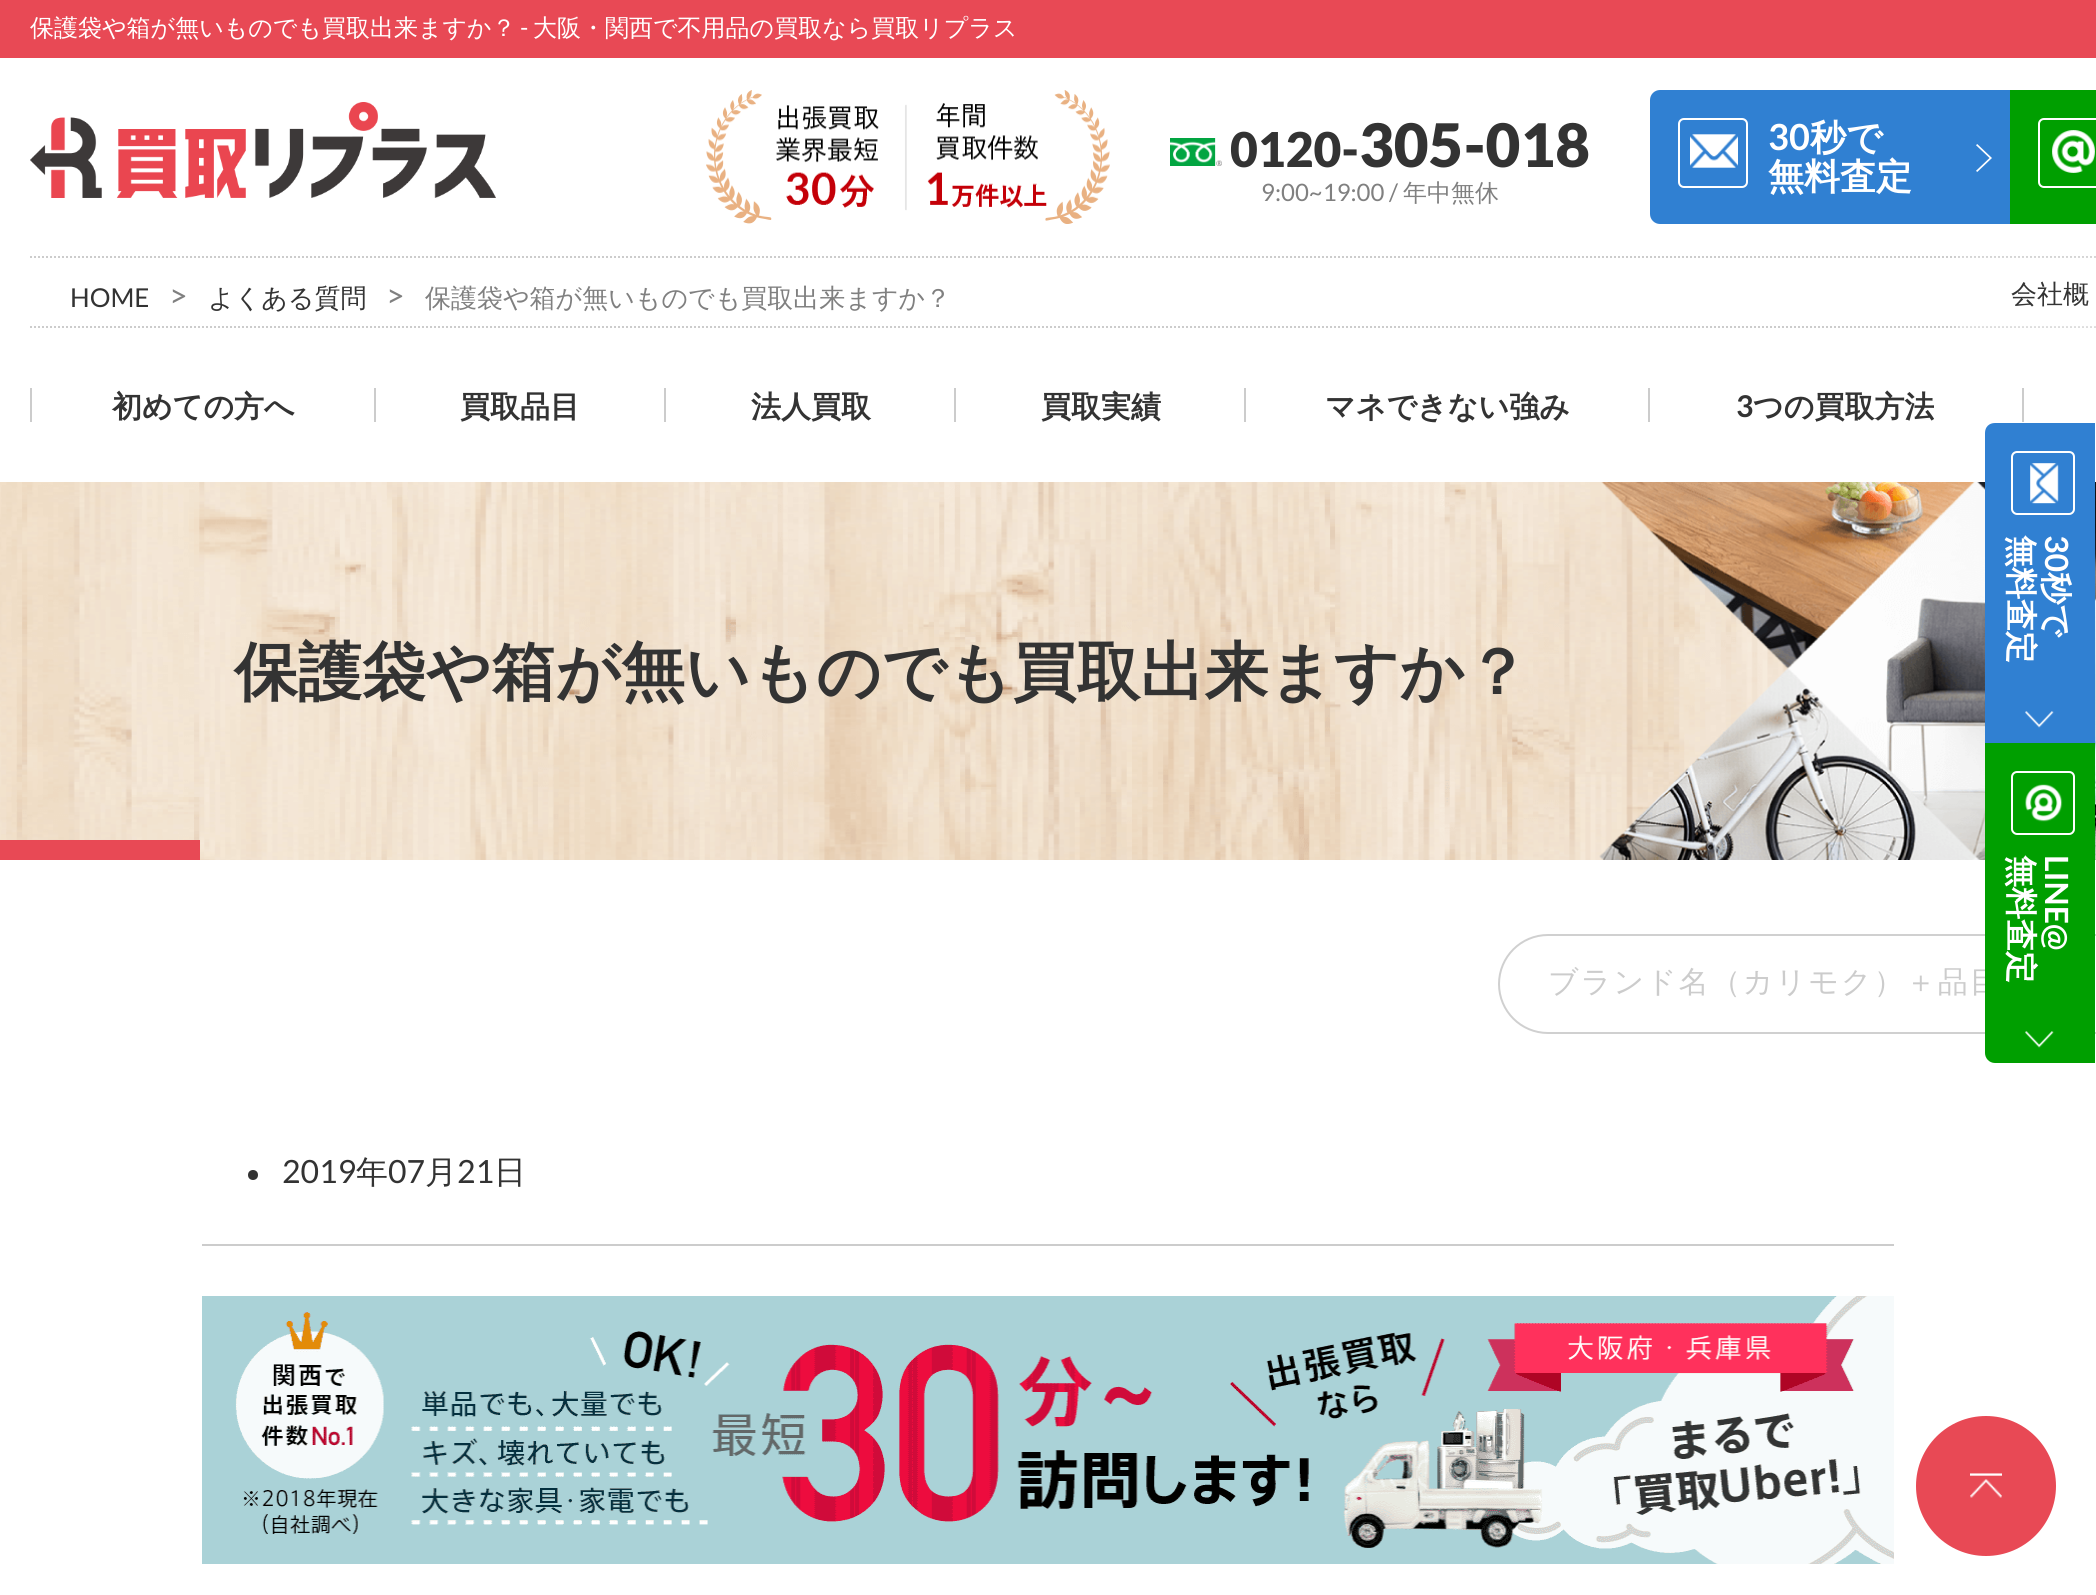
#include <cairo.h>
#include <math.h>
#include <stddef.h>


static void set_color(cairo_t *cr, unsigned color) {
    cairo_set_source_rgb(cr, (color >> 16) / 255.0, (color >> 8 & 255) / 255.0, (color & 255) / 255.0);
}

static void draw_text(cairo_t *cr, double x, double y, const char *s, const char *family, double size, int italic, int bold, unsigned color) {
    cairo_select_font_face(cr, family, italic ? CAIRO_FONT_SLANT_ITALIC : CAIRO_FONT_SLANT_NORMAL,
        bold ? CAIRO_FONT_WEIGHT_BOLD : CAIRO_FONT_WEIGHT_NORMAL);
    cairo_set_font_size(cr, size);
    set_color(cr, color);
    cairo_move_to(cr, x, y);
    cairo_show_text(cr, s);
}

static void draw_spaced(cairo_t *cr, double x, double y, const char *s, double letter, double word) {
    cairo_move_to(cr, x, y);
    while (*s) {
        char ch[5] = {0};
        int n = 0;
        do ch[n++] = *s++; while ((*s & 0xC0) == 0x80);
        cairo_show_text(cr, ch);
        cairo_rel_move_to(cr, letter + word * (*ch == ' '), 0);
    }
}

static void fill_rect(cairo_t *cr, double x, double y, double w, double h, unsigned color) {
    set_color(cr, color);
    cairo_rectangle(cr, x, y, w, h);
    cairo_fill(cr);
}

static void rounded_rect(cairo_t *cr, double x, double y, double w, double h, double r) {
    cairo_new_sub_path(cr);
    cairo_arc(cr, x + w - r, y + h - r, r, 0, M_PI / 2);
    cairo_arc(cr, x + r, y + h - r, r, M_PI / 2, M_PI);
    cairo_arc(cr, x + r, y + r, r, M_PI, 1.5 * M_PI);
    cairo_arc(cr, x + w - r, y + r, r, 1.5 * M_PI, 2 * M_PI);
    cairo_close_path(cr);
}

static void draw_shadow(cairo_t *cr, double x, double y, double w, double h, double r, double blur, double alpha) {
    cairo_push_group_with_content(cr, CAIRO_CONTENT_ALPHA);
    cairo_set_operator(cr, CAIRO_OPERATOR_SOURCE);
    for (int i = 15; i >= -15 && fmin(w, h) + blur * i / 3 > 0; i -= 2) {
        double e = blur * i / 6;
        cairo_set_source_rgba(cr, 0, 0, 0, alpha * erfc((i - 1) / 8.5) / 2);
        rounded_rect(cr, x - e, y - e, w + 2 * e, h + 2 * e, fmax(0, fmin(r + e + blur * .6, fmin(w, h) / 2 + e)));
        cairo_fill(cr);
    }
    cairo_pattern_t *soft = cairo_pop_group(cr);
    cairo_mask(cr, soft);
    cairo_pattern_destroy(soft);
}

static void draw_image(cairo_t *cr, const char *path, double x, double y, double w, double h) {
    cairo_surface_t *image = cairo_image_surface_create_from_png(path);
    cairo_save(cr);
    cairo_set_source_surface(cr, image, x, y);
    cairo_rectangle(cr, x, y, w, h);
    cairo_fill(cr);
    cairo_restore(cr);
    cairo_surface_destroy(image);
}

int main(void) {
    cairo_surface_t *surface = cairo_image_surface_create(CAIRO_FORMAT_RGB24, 2096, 1595);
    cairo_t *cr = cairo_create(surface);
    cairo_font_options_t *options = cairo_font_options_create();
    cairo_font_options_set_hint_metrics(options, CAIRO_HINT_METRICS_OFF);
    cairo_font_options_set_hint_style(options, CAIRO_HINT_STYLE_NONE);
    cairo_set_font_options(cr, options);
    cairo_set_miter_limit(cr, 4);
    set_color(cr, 0xFFFFFF);
    cairo_paint(cr);
    fill_rect(cr, 0, 0, 2096, 58, 0xE84955);
    draw_text(cr, 30, 36, "保護袋や箱が無いものでも買取出来ますか？", "WenQuanYi Zen Hei Medium", 24, 0, 0, 0xFFFFFF);
    draw_text(cr, 520, 36, "-", "Lato", 24, 0, 0, 0xFFFFFF);
    draw_text(cr, 533, 36, "大阪・関西で不用品の買取なら買取リプラス", "WenQuanYi Zen Hei Medium", 24, 0, 0, 0xFFFFFF);
    draw_image(cr, "assets/img1.png", 30, 102, 466, 96);
    draw_image(cr, "assets/img2.png", 706, 90, 404, 134);
    draw_image(cr, "assets/img3.png", 1170, 138, 52, 28);
    draw_text(cr, 1230, 167, "0120-", "Lato Black", 48, 0, 0, 0x333333);
    draw_text(cr, 1359, 167, "305-018", "Lato Black", 60, 0, 0, 0x333333);
    draw_text(cr, 1261, 201, "9:00~19:00 /", "Lato", 24, 0, 0, 0x808080);
    draw_text(cr, 1403, 201, "年中無休", "WenQuanYi Zen Hei Medium", 24, 0, 0, 0x808080);
    set_color(cr, 0x3080D2);
    cairo_new_path(cr);
    cairo_move_to(cr, 1660, 90);
    cairo_line_to(cr, 2010, 90);
    cairo_line_to(cr, 2010, 224);
    cairo_line_to(cr, 1660, 224);
    cairo_curve_to(cr, 1654.5, 224, 1650, 219.5, 1650, 214);
    cairo_line_to(cr, 1650, 100);
    cairo_curve_to(cr, 1650, 94.5, 1654.5, 90, 1660, 90);
    cairo_close_path(cr);
    cairo_fill(cr);
    draw_image(cr, "assets/img4.png", 1690, 134, 48, 34);
    rounded_rect(cr, 1679, 119, 68, 68, 5);
    set_color(cr, 0xFFFFFF);
    cairo_stroke(cr);
    draw_text(cr, 1768, 150, "30", "Lato", 36, 0, 1, 0xFFFFFF);
    draw_text(cr, 1810, 150, "秒で", "WenQuanYi Zen Hei", 36, 0, 1, 0xFFFFFF);
    draw_text(cr, 1768, 189, "無料査定", "WenQuanYi Zen Hei", 36, 0, 1, 0xFFFFFF);
    draw_image(cr, "assets/img5.png", 1976, 144, 16, 28);
    fill_rect(cr, 2010, 90, 86, 134, 0x009F00);
    draw_image(cr, "assets/img6.png", 2052, 130, 43, 43);
    rounded_rect(cr, 2039, 119, 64, 68, 5);
    set_color(cr, 0xFFFFFF);
    cairo_stroke(cr);
    cairo_new_path(cr);
    cairo_move_to(cr, 30, 257);
    cairo_line_to(cr, 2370, 257);
    set_color(cr, 0xCCCCCC);
    cairo_set_dash(cr, (double[]){2, 2}, 2, 0);
    cairo_stroke(cr);
    cairo_new_path(cr);
    cairo_move_to(cr, 30, 327);
    cairo_line_to(cr, 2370, 327);
    cairo_stroke(cr);
    draw_text(cr, 70, 307, "HOME", "Lato", 26, 0, 0, 0x333333);
    draw_text(cr, 169, 307, ">", "Lato", 32, 0, 0, 0x808080);
    draw_text(cr, 208, 307, "よくある質問", "WenQuanYi Zen Hei Medium", 26, 0, 0, 0x333333);
    draw_text(cr, 386, 307, ">", "Lato", 32, 0, 0, 0x808080);
    draw_text(cr, 425, 307, "保護袋や箱が無いものでも買取出来ますか？", "WenQuanYi Zen Hei Medium", 26, 0, 0, 0x808080);
    cairo_save(cr);
    cairo_set_fill_rule(cr, CAIRO_FILL_RULE_EVEN_ODD);
    cairo_new_path(cr);
    cairo_move_to(cr, 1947, 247);
    cairo_line_to(cr, 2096, 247);
    cairo_line_to(cr, 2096, 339);
    cairo_line_to(cr, 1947, 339);
    cairo_close_path(cr);
    cairo_move_to(cr, 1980, 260);
    cairo_line_to(cr, 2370, 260);
    cairo_line_to(cr, 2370, 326);
    cairo_line_to(cr, 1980, 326);
    cairo_close_path(cr);
    cairo_clip(cr);
    set_color(cr, 0xFFFFFF);
    draw_shadow(cr, 1960, 260, 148, 66, 0, 4, 0.9);
    cairo_restore(cr);
    draw_text(cr, 2011, 303, "会社概", "WenQuanYi Zen Hei Medium", 26, 0, 0, 0x333333);
    draw_image(cr, "assets/img11.png", 0, 482, 2096, 378);
    set_color(cr, 0x3080D2);
    cairo_new_path(cr);
    cairo_move_to(cr, 2095, 423);
    cairo_line_to(cr, 2095, 743);
    cairo_line_to(cr, 1985, 743);
    cairo_line_to(cr, 1985, 433);
    cairo_curve_to(cr, 1985, 427, 1989, 423, 1995, 423);
    cairo_close_path(cr);
    cairo_fill(cr);
    draw_image(cr, "assets/img7.png", 2030, 463, 29, 41);
    cairo_new_path(cr);
    cairo_move_to(cr, 2074, 457);
    cairo_line_to(cr, 2074, 509);
    cairo_curve_to(cr, 2074, 511.5, 2072, 514, 2069, 514);
    cairo_line_to(cr, 2017, 514);
    cairo_curve_to(cr, 2014.5, 514, 2012, 511.5, 2012, 509);
    cairo_line_to(cr, 2012, 457);
    cairo_curve_to(cr, 2012, 454, 2014.5, 452, 2017, 452);
    cairo_line_to(cr, 2069, 452);
    cairo_curve_to(cr, 2072, 452, 2074, 454, 2074, 457);
    cairo_close_path(cr);
    set_color(cr, 0xFFFFFF);
    cairo_set_dash(cr, NULL, 0, 0);
    cairo_stroke(cr);
    cairo_save(cr);
    cairo_translate(cr, 2010, 535);
    cairo_rotate(cr, 90 * M_PI / 180);
    draw_text(cr, 0, 0, "無料査定", "WenQuanYi Zen Hei", 32, 0, 1, 0xFFFFFF);
    cairo_restore(cr);
    cairo_save(cr);
    cairo_translate(cr, 2045, 535);
    cairo_rotate(cr, 90 * M_PI / 180);
    draw_text(cr, 0, 0, "30", "Lato", 32, 0, 1, 0xFFFFFF);
    cairo_restore(cr);
    cairo_save(cr);
    cairo_translate(cr, 2045, 572);
    cairo_rotate(cr, 90 * M_PI / 180);
    draw_text(cr, 0, 0, "秒で", "WenQuanYi Zen Hei", 32, 0, 1, 0xFFFFFF);
    cairo_restore(cr);
    draw_image(cr, "assets/img8.png", 2025, 711, 29, 17);
    rounded_rect(cr, 1499, 935, 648, 98, 49);
    set_color(cr, 0xD0D0D0);
    cairo_stroke(cr);
    cairo_select_font_face(cr, "WenQuanYi Zen Hei Medium", CAIRO_FONT_SLANT_NORMAL, CAIRO_FONT_WEIGHT_NORMAL);
    cairo_set_font_size(cr, 30);
    set_color(cr, 0xCCCCCC);
    draw_spaced(cr, 1548, 992, "ブランド名（カリモク）＋品目", 2, 0);
    set_color(cr, 0x009F00);
    cairo_new_path(cr);
    cairo_move_to(cr, 2095, 743);
    cairo_line_to(cr, 2095, 1063);
    cairo_line_to(cr, 1995, 1063);
    cairo_curve_to(cr, 1989, 1063, 1985, 1058, 1985, 1053);
    cairo_line_to(cr, 1985, 743);
    cairo_close_path(cr);
    cairo_fill(cr);
    draw_image(cr, "assets/img9.png", 2025, 784, 38, 38);
    cairo_new_path(cr);
    cairo_move_to(cr, 2074, 777);
    cairo_line_to(cr, 2074, 829);
    cairo_curve_to(cr, 2074, 831.5, 2072, 834, 2069, 834);
    cairo_line_to(cr, 2017, 834);
    cairo_curve_to(cr, 2014.5, 834, 2012, 831.5, 2012, 829);
    cairo_line_to(cr, 2012, 777);
    cairo_curve_to(cr, 2012, 774, 2014.5, 772, 2017, 772);
    cairo_line_to(cr, 2069, 772);
    cairo_curve_to(cr, 2072, 772, 2074, 774, 2074, 777);
    cairo_close_path(cr);
    set_color(cr, 0xFFFFFF);
    cairo_stroke(cr);
    cairo_save(cr);
    cairo_translate(cr, 2010, 855);
    cairo_rotate(cr, 90 * M_PI / 180);
    draw_text(cr, 0, 0, "無料査定", "WenQuanYi Zen Hei", 32, 0, 1, 0xFFFFFF);
    cairo_restore(cr);
    cairo_save(cr);
    cairo_translate(cr, 2045, 855);
    cairo_rotate(cr, 90 * M_PI / 180);
    draw_text(cr, 0, 0, "LINE@", "Lato", 32, 0, 1, 0xFFFFFF);
    cairo_restore(cr);
    draw_image(cr, "assets/img10.png", 2025, 1031, 29, 17);
    fill_rect(cr, 374, 388, 2, 34, 0xCCCCCC);
    fill_rect(cr, 30, 388, 2, 34, 0xCCCCCC);
    draw_text(cr, 112, 417, "初めての方へ", "WenQuanYi Zen Hei", 30, 0, 1, 0x333333);
    fill_rect(cr, 664, 388, 2, 34, 0xCCCCCC);
    draw_text(cr, 460, 417, "買取品目", "WenQuanYi Zen Hei", 30, 0, 1, 0x333333);
    fill_rect(cr, 954, 388, 2, 34, 0xCCCCCC);
    draw_text(cr, 751, 417, "法人買取", "WenQuanYi Zen Hei", 30, 0, 1, 0x333333);
    fill_rect(cr, 1244, 388, 2, 34, 0xCCCCCC);
    draw_text(cr, 1041, 417, "買取実績", "WenQuanYi Zen Hei", 30, 0, 1, 0x333333);
    fill_rect(cr, 1648, 388, 2, 34, 0xCCCCCC);
    draw_text(cr, 1325, 417, "マネできない強み", "WenQuanYi Zen Hei", 30, 0, 1, 0x333333);
    fill_rect(cr, 2022, 388, 2, 34, 0xCCCCCC);
    draw_text(cr, 1736, 417, "3", "Lato", 30, 0, 1, 0x333333);
    draw_text(cr, 1753, 417, "つの買取方法", "WenQuanYi Zen Hei", 30, 0, 1, 0x333333);
    draw_text(cr, 234, 694, "保護袋や箱が無いものでも買取出来ますか？", "WenQuanYi Zen Hei", 64, 0, 1, 0x333333);
    fill_rect(cr, 0, 840, 200, 20, 0xE84955);
    set_color(cr, 0x333333);
    cairo_new_path(cr);
    cairo_arc(cr, 253, 1175, 5, 0, 2 * M_PI);
    cairo_fill(cr);
    draw_text(cr, 282, 1183, "2019", "Lato", 32, 0, 0, 0x333333);
    draw_text(cr, 356, 1183, "年", "WenQuanYi Zen Hei Medium", 32, 0, 0, 0x333333);
    draw_text(cr, 388, 1183, "07", "Lato", 32, 0, 0, 0x333333);
    draw_text(cr, 425, 1183, "月", "WenQuanYi Zen Hei Medium", 32, 0, 0, 0x333333);
    draw_text(cr, 457, 1183, "21", "Lato", 32, 0, 0, 0x333333);
    draw_text(cr, 494, 1183, "日", "WenQuanYi Zen Hei Medium", 32, 0, 0, 0x333333);
    fill_rect(cr, 202, 1244, 1692, 2, 0xCCCCCC);
    draw_image(cr, "assets/img12.png", 202, 1296, 1692, 268);
    set_color(cr, 0xE84955);
    cairo_arc(cr, 1986, 1486, 70, 0, 2 * M_PI);
    cairo_fill(cr);
    draw_image(cr, "assets/img13.png", 1970, 1473, 32, 25);
    cairo_surface_write_to_png(surface, "output.png");
    cairo_font_options_destroy(options);
    cairo_destroy(cr);
    cairo_surface_destroy(surface);
    return 0;
}
